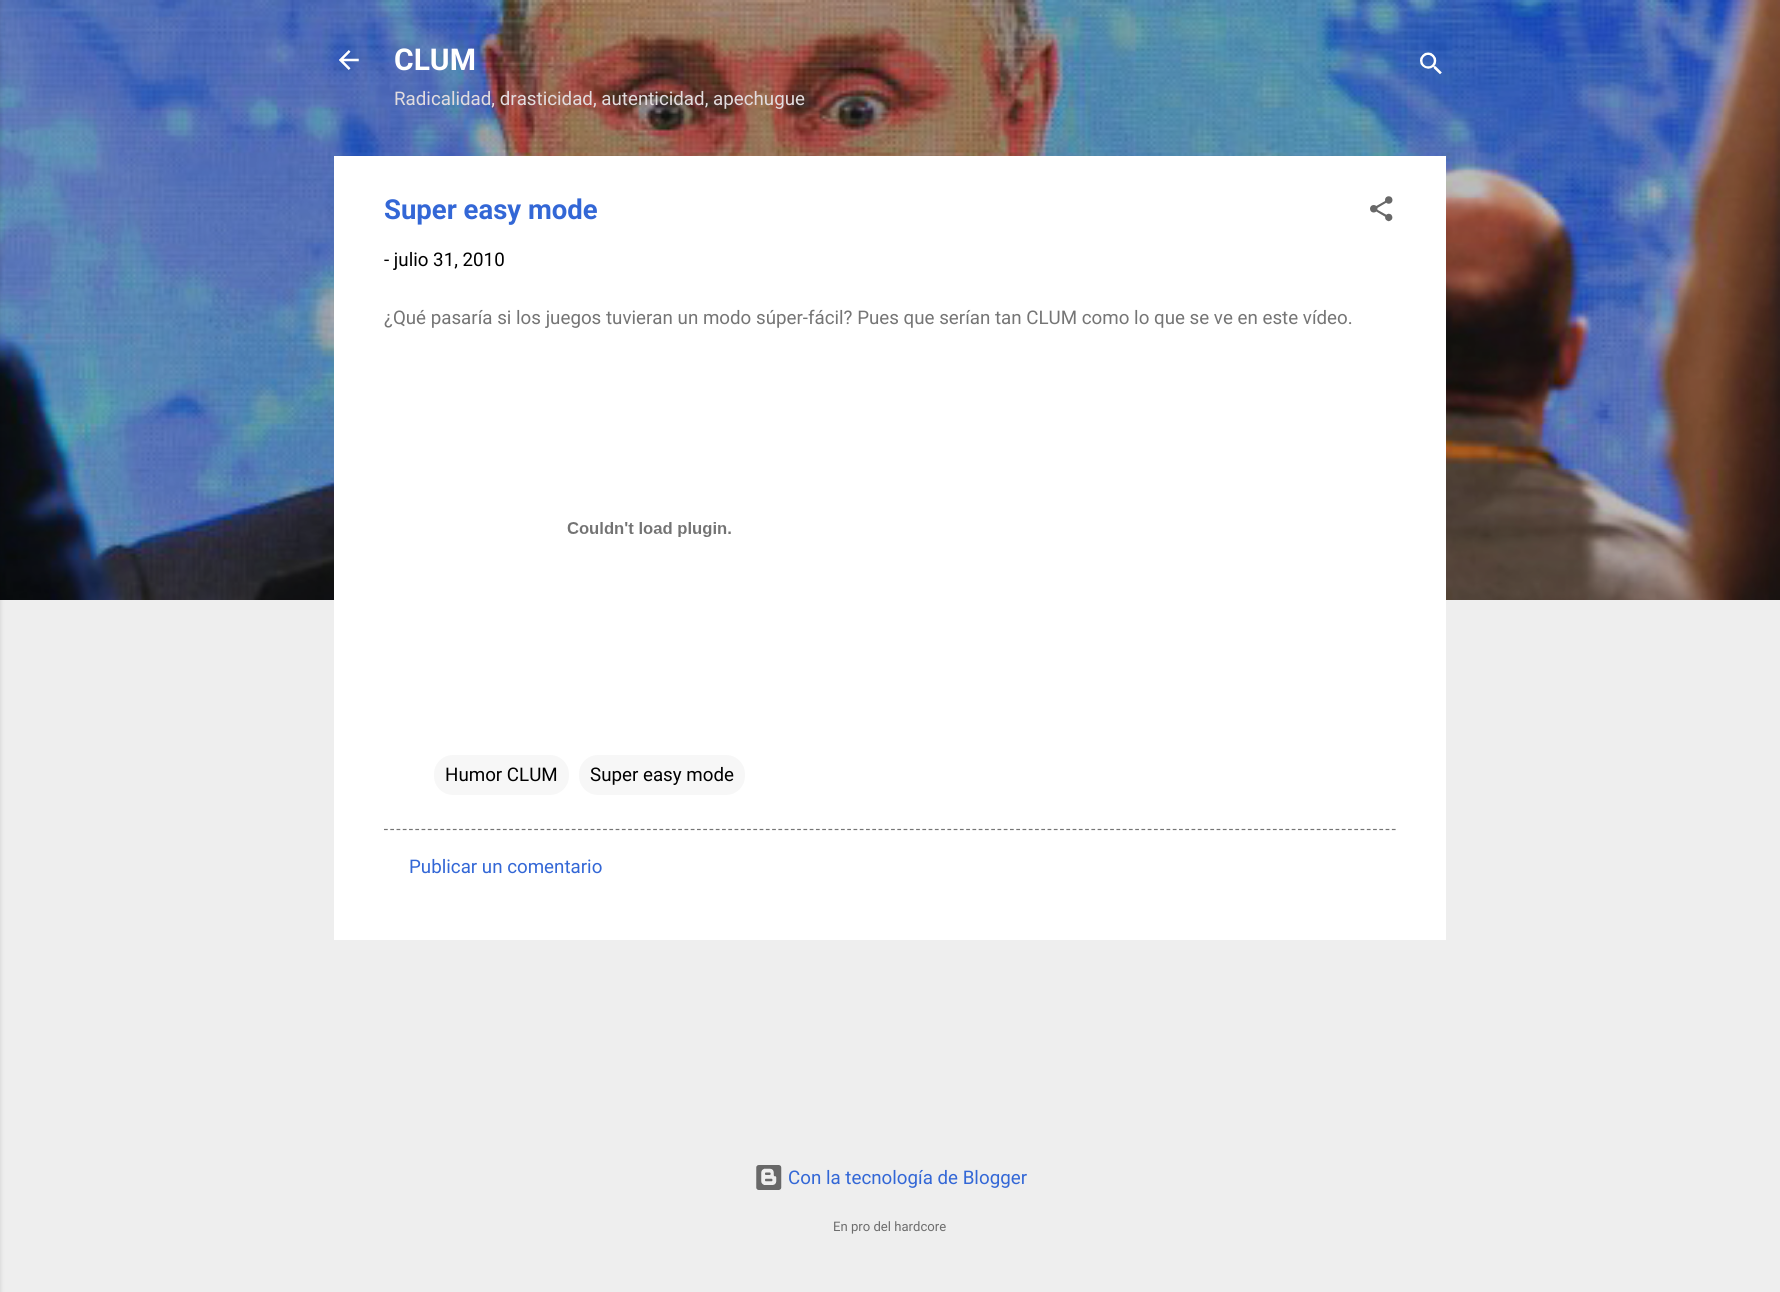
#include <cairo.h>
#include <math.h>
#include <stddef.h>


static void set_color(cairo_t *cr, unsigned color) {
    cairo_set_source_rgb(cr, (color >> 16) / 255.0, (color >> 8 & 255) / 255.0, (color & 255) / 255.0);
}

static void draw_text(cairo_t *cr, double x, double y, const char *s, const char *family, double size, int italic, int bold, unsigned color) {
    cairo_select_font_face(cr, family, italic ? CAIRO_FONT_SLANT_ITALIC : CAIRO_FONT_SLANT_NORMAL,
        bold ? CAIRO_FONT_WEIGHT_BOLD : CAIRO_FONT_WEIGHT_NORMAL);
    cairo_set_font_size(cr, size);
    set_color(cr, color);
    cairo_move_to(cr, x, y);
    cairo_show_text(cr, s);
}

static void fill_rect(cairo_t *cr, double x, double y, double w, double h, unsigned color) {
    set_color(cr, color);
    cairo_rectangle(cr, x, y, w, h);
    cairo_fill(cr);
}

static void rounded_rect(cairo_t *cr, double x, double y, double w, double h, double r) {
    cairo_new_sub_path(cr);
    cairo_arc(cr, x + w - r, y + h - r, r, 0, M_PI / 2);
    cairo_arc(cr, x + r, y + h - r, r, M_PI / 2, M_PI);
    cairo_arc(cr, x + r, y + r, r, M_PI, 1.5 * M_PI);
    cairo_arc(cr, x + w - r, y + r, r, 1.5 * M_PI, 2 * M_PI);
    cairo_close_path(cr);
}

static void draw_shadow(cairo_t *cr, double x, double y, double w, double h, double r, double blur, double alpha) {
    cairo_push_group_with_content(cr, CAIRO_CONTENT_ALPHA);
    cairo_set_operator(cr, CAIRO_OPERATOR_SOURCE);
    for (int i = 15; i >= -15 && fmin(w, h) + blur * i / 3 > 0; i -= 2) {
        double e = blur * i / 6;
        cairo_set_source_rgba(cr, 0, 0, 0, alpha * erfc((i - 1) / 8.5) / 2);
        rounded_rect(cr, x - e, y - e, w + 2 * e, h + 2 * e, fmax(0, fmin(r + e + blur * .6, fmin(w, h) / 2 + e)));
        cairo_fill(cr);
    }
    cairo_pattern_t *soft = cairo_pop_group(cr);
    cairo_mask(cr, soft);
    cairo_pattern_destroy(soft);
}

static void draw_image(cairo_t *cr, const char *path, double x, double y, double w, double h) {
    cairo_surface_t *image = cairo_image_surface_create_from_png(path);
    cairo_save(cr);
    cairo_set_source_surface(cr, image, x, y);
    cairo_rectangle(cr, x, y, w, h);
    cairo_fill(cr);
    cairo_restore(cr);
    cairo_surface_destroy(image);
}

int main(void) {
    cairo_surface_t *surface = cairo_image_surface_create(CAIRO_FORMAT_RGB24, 1780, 1292);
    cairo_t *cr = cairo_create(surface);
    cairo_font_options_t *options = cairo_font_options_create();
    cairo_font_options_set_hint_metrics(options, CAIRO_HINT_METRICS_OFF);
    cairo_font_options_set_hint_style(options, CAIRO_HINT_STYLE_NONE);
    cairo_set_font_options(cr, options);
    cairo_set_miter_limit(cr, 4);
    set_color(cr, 0xEEEEEE);
    cairo_paint(cr);
    draw_image(cr, "assets/img1.png", 0, 0, 1780, 600);
    set_color(cr, 0x000000);
    draw_shadow(cr, -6, 1, 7, 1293, 0, 2, 0.1);
    draw_image(cr, "assets/img2.png", 339, 50, 20, 20);
    draw_text(cr, 394, 70, "CLUM", "Roboto", 30, 0, 1, 0xFFFFFF);
    draw_text(cr, 394, 105, "Radicalidad, drasticidad, autenticidad, apechugue", "Roboto", 18.75, 0, 0, 0xE2DCDE);
    draw_image(cr, "assets/img3.png", 1420, 52, 22, 23);
    fill_rect(cr, 334, 156, 1112, 784, 0xFFFFFF);
    draw_text(cr, 384, 219, "Super easy mode", "Roboto", 27.5, 0, 1, 0x3367D6);
    draw_image(cr, "assets/img4.png", 1370, 196, 23, 26);
    draw_text(cr, 384, 266, "- julio 31, 2010", "Roboto", 18.75, 0, 0, 0x000000);
    draw_text(cr, 384, 324, "¿Qué pasaría si los juegos tuvieran un modo súper-fácil? Pues que serían tan CLUM como lo que se ve en este vídeo.", "Roboto", 18.75, 0, 0, 0x757575);
    draw_image(cr, "assets/img5.png", 567, 522, 164, 15);
    set_color(cr, 0xF7F7F7);
    rounded_rect(cr, 434, 755, 135, 40, 19);
    cairo_fill(cr);
    draw_text(cr, 445, 781, "Humor CLUM", "Roboto", 18.75, 0, 0, 0x000000);
    set_color(cr, 0xF7F7F7);
    rounded_rect(cr, 579, 755, 166, 40, 19);
    cairo_fill(cr);
    draw_text(cr, 590, 781, "Super easy mode", "Roboto", 18.75, 0, 0, 0x000000);
    cairo_new_path(cr);
    cairo_move_to(cr, 384, 829.5);
    cairo_line_to(cr, 1396, 829.5);
    set_color(cr, 0x757575);
    cairo_set_line_width(cr, 1.2);
    cairo_set_dash(cr, (double[]){3.75, 2.51}, 2, 0);
    cairo_stroke(cr);
    draw_text(cr, 409, 873, "Publicar un comentario", "Roboto", 18.75, 0, 0, 0x3367D6);
    draw_image(cr, "assets/img6.png", 756, 1165, 26, 25);
    draw_text(cr, 788, 1184, "Con la tecnología de Blogger", "Roboto", 18.75, 0, 0, 0x3367D6);
    draw_text(cr, 833, 1231, "En pro del hardcore", "Roboto", 13.1, 0, 0, 0x6D6D6D);
    cairo_surface_write_to_png(surface, "output.png");
    cairo_font_options_destroy(options);
    cairo_destroy(cr);
    cairo_surface_destroy(surface);
    return 0;
}
